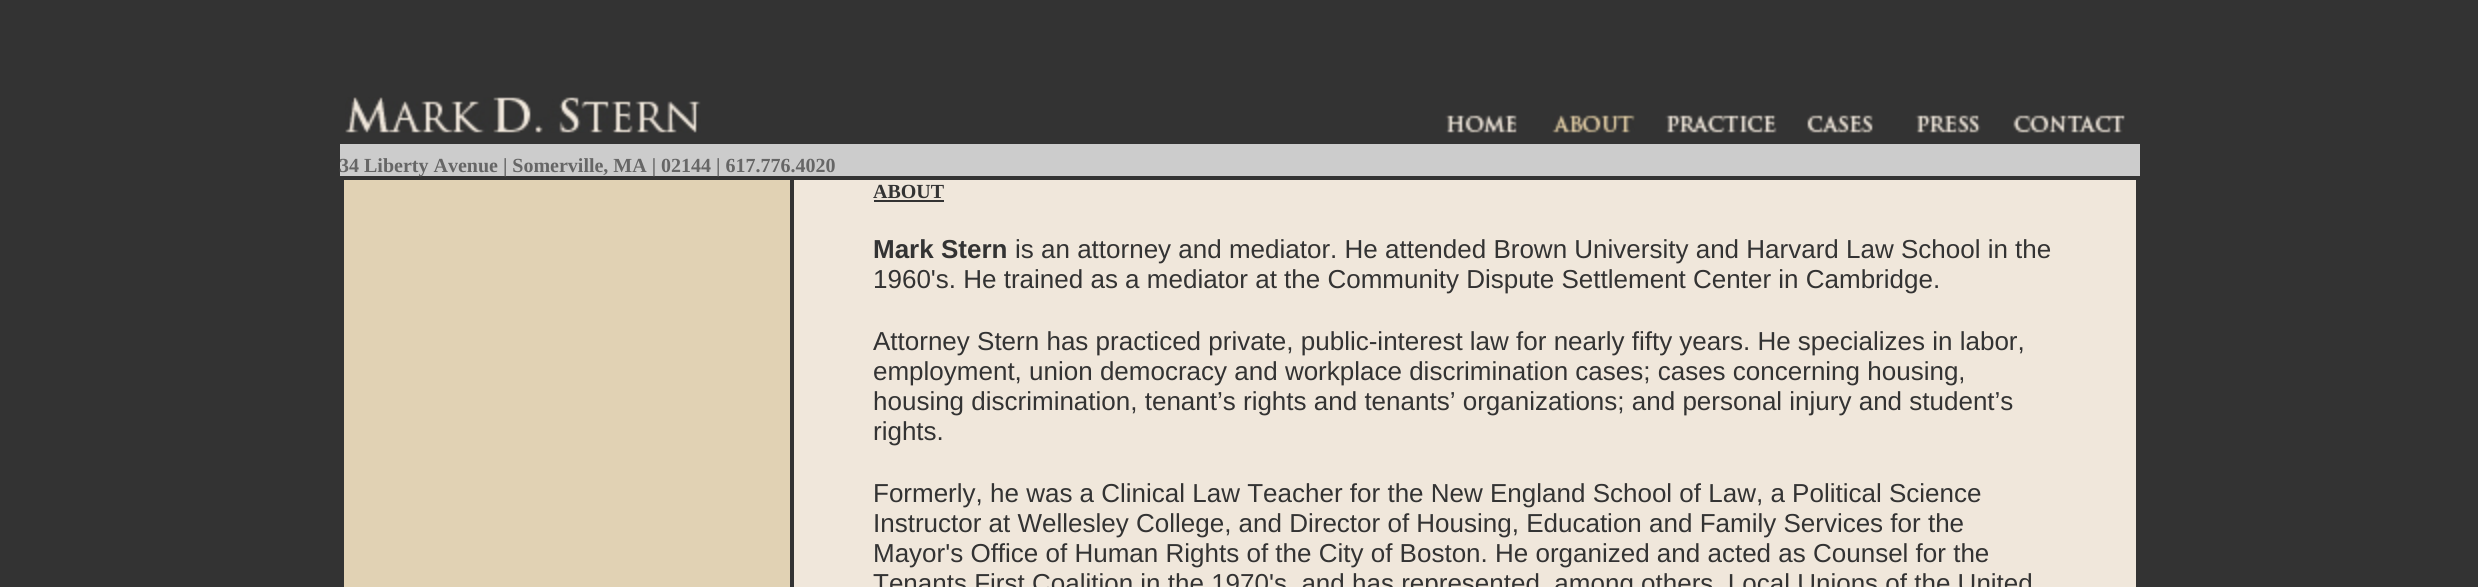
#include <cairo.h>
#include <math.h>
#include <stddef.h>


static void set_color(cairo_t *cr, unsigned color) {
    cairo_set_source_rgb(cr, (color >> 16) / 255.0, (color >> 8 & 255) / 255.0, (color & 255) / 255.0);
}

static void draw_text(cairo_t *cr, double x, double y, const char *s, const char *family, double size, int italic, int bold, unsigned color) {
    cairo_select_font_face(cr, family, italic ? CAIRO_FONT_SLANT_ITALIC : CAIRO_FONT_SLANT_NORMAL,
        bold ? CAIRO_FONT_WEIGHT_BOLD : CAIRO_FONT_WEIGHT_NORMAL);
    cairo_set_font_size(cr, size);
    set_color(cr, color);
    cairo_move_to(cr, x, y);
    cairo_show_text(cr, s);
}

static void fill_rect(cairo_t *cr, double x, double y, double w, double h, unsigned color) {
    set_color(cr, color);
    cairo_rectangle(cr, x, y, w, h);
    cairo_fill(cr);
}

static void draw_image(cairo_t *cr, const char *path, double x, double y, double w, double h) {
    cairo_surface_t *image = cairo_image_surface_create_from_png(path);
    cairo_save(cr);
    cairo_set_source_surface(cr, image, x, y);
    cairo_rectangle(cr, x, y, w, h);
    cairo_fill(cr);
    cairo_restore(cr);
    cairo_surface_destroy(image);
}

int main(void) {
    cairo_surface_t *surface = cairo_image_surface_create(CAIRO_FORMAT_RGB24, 2478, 587);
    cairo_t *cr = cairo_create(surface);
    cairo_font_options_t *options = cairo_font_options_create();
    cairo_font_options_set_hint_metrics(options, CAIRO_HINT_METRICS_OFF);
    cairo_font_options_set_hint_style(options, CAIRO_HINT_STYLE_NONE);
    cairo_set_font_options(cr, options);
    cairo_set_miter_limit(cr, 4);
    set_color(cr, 0x333333);
    cairo_paint(cr);
    fill_rect(cr, 340, 144, 1800, 32, 0xCCCCCC);
    draw_image(cr, "assets/img1.png", 345, 97, 356, 36);
    draw_image(cr, "assets/img2.png", 1445, 115, 72, 18);
    draw_image(cr, "assets/img3.png", 1552, 115, 83, 18);
    draw_image(cr, "assets/img4.png", 1665, 115, 112, 18);
    draw_image(cr, "assets/img5.png", 1807, 115, 66, 18);
    draw_image(cr, "assets/img6.png", 1915, 115, 66, 18);
    draw_image(cr, "assets/img7.png", 2013, 115, 112, 18);
    draw_text(cr, 339, 172, "34 Liberty Avenue | Somerville, MA | 02144 | 617.776.4020", "Liberation Serif", 20, 0, 1, 0x666666);
    fill_rect(cr, 344, 180, 446, 407, 0xE1D2B4);
    fill_rect(cr, 794, 180, 1342, 407, 0xF0E7DB);
    draw_text(cr, 873, 198, "ABOUT", "Liberation Serif", 20, 0, 1, 0x333333);
    fill_rect(cr, 874, 200, 70, 2, 0x333333);
    draw_text(cr, 873, 258, "Mark Stern", "Liberation Sans", 26, 0, 1, 0x333333);
    draw_text(cr, 1015, 258, "is an attorney and mediator. He attended Brown University and Harvard Law School in the", "Liberation Sans", 26, 0, 0, 0x333333);
    draw_text(cr, 873, 288, "1960's. He trained as a mediator at the Community Dispute Settlement Center in Cambridge.", "Liberation Sans", 26, 0, 0, 0x333333);
    draw_text(cr, 873, 350, "Attorney Stern has practiced private, public-interest law for nearly fifty years. He specializes in labor,", "Liberation Sans", 26, 0, 0, 0x333333);
    draw_text(cr, 873, 380, "employment, union democracy and workplace discrimination cases; cases concerning housing,", "Liberation Sans", 26, 0, 0, 0x333333);
    draw_text(cr, 873, 410, "housing discrimination, tenant’s rights and tenants’ organizations; and personal injury and student’s", "Liberation Sans", 26, 0, 0, 0x333333);
    draw_text(cr, 873, 440, "rights.", "Liberation Sans", 26, 0, 0, 0x333333);
    draw_text(cr, 873, 502, "Formerly, he was a Clinical Law Teacher for the New England School of Law, a Political Science", "Liberation Sans", 26, 0, 0, 0x333333);
    draw_text(cr, 873, 532, "Instructor at Wellesley College, and Director of Housing, Education and Family Services for the", "Liberation Sans", 26, 0, 0, 0x333333);
    draw_text(cr, 873, 562, "Mayor's Office of Human Rights of the City of Boston. He organized and acted as Counsel for the", "Liberation Sans", 26, 0, 0, 0x333333);
    draw_text(cr, 873, 592, "Tenants First Coalition in the 1970's, and has represented, among others, Local Unions of the United", "Liberation Sans", 26, 0, 0, 0x333333);
    cairo_surface_write_to_png(surface, "output.png");
    cairo_font_options_destroy(options);
    cairo_destroy(cr);
    cairo_surface_destroy(surface);
    return 0;
}
